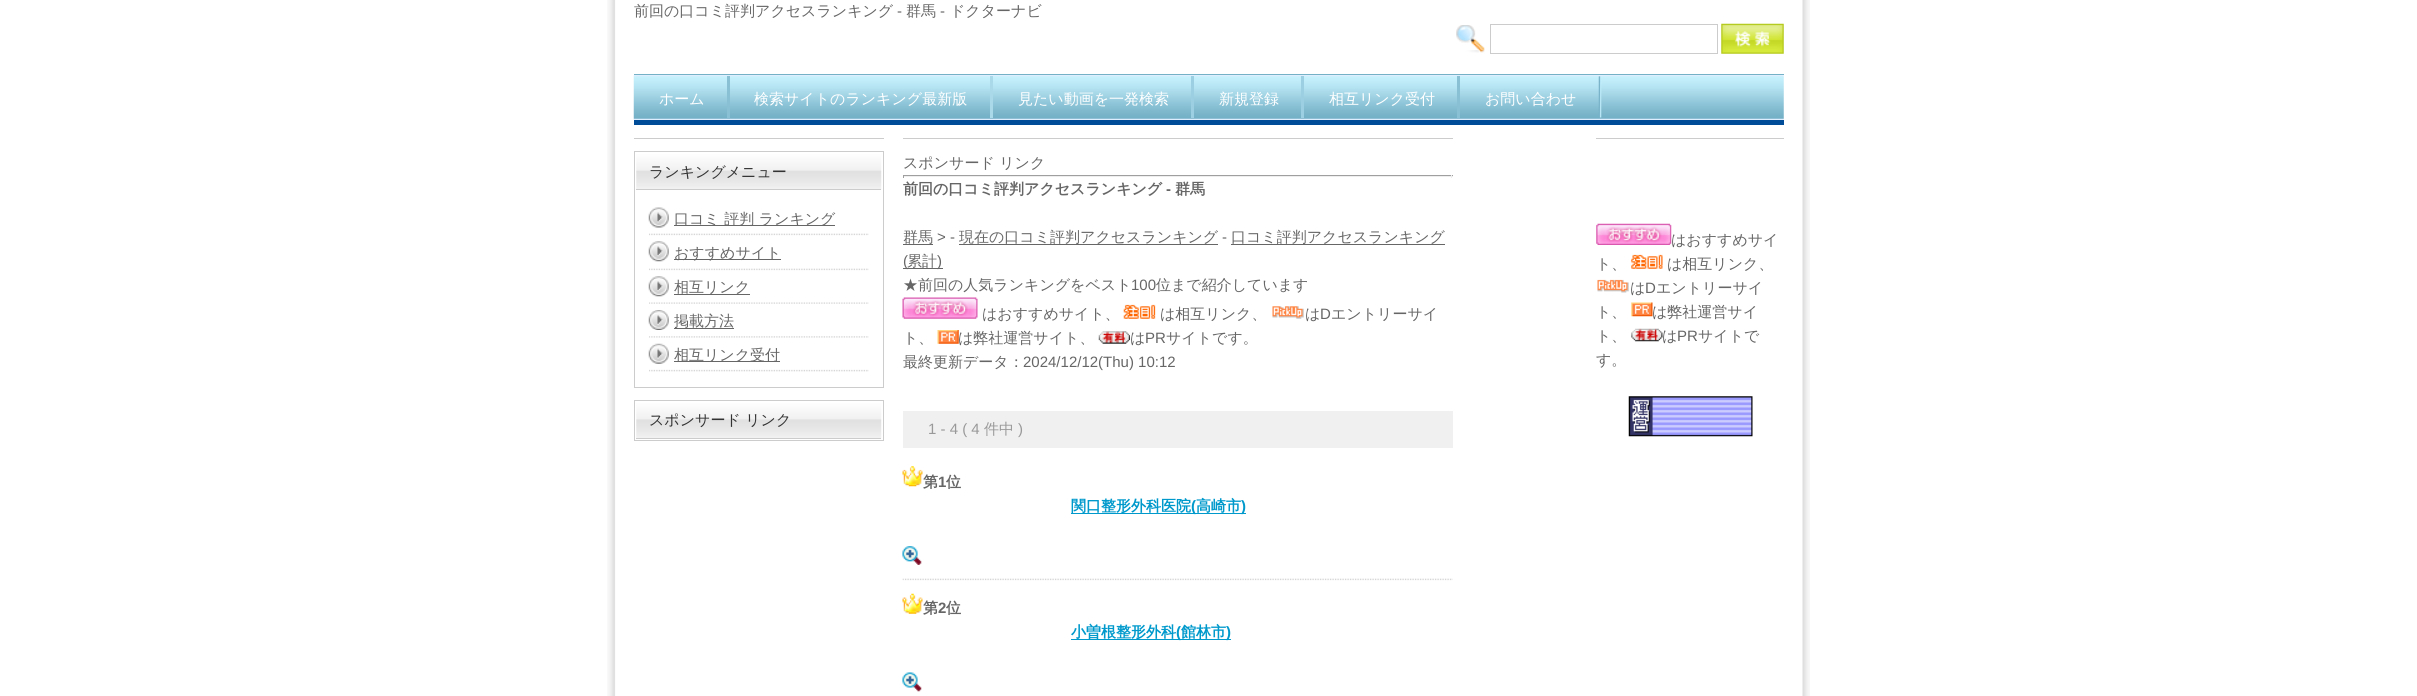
#include <cairo.h>
#include <math.h>
#include <stddef.h>


static void set_color(cairo_t *cr, unsigned color) {
    cairo_set_source_rgb(cr, (color >> 16) / 255.0, (color >> 8 & 255) / 255.0, (color & 255) / 255.0);
}

static void draw_text(cairo_t *cr, double x, double y, const char *s, const char *family, double size, int italic, int bold, unsigned color) {
    cairo_select_font_face(cr, family, italic ? CAIRO_FONT_SLANT_ITALIC : CAIRO_FONT_SLANT_NORMAL,
        bold ? CAIRO_FONT_WEIGHT_BOLD : CAIRO_FONT_WEIGHT_NORMAL);
    cairo_set_font_size(cr, size);
    set_color(cr, color);
    cairo_move_to(cr, x, y);
    cairo_show_text(cr, s);
}

static void fill_rect(cairo_t *cr, double x, double y, double w, double h, unsigned color) {
    set_color(cr, color);
    cairo_rectangle(cr, x, y, w, h);
    cairo_fill(cr);
}

static void draw_image(cairo_t *cr, const char *path, double x, double y, double w, double h) {
    cairo_surface_t *image = cairo_image_surface_create_from_png(path);
    cairo_save(cr);
    cairo_set_source_surface(cr, image, x, y);
    cairo_rectangle(cr, x, y, w, h);
    cairo_fill(cr);
    cairo_restore(cr);
    cairo_surface_destroy(image);
}

int main(void) {
    cairo_surface_t *surface = cairo_image_surface_create(CAIRO_FORMAT_RGB24, 2417, 696);
    cairo_t *cr = cairo_create(surface);
    cairo_font_options_t *options = cairo_font_options_create();
    cairo_font_options_set_hint_metrics(options, CAIRO_HINT_METRICS_OFF);
    cairo_font_options_set_hint_style(options, CAIRO_HINT_STYLE_NONE);
    cairo_set_font_options(cr, options);
    cairo_set_miter_limit(cr, 4);
    set_color(cr, 0xFFFFFF);
    cairo_paint(cr);
    draw_image(cr, "assets/img1.png", 607, 0, 1203, 696);
    draw_text(cr, 634, 16, "前回の口コミ評判アクセスランキング", "WenQuanYi Zen Hei Medium", 15, 0, 0, 0x666666);
    draw_text(cr, 897, 16, "-", "Liberation Sans", 15, 0, 0, 0x666666);
    draw_text(cr, 906, 16, "群馬", "WenQuanYi Zen Hei Medium", 15, 0, 0, 0x666666);
    draw_text(cr, 940, 16, "-", "Liberation Sans", 15, 0, 0, 0x666666);
    draw_text(cr, 950, 16, "ドクターナビ", "WenQuanYi Zen Hei Medium", 15, 0, 0, 0x666666);
    draw_image(cr, "assets/img2.png", 1456, 25, 29, 28);
    cairo_rectangle(cr, 1490.5, 24.5, 227, 29);
    set_color(cr, 0xCCCCCC);
    cairo_set_line_width(cr, 1);
    cairo_stroke(cr);
    draw_image(cr, "assets/img3.png", 1721, 23, 63, 31);
    draw_image(cr, "assets/img4.png", 633, 75, 1151, 45);
    fill_rect(cr, 634, 74, 1150, 1, 0x74B0C6);
    fill_rect(cr, 634, 120, 1150, 5, 0x004C99);
    fill_rect(cr, 727, 76, 3, 42, 0x89C0D4);
    draw_text(cr, 659, 104, "ホーム", "WenQuanYi Zen Hei Medium", 15, 0, 0, 0xFFFFFF);
    fill_rect(cr, 990, 76, 3, 42, 0xAADAEA);
    draw_text(cr, 754, 104, "検索サイトのランキング最新版", "WenQuanYi Zen Hei Medium", 15, 0, 0, 0xFFFFFF);
    fill_rect(cr, 1191, 76, 3, 42, 0x9CCFE1);
    draw_text(cr, 1018, 104, "見たい動画を一発検索", "WenQuanYi Zen Hei Medium", 15, 0, 0, 0xFFFFFF);
    fill_rect(cr, 1301, 76, 3, 42, 0x9CCFE1);
    draw_text(cr, 1219, 104, "新規登録", "WenQuanYi Zen Hei Medium", 15, 0, 0, 0xFFFFFF);
    fill_rect(cr, 1457, 76, 3, 42, 0x89C0D4);
    draw_text(cr, 1329, 104, "相互リンク受付", "WenQuanYi Zen Hei Medium", 15, 0, 0, 0xFFFFFF);
    draw_image(cr, "assets/img5.png", 1598, 76, 4, 42);
    draw_text(cr, 1485, 104, "お問い合わせ", "WenQuanYi Zen Hei Medium", 15, 0, 0, 0xFFFFFF);
    fill_rect(cr, 634, 138, 250, 1, 0xCCCCCC);
    cairo_rectangle(cr, 634.5, 151.5, 249, 236);
    cairo_stroke(cr);
    draw_image(cr, "assets/img6.png", 636, 154, 246, 36);
    fill_rect(cr, 636, 189, 245, 1, 0xCCCCCC);
    draw_text(cr, 649, 177, "ランキングメニュー", "WenQuanYi Zen Hei Medium", 15, 0, 0, 0x333333);
    draw_image(cr, "assets/img7.png", 649, 233, 220, 3);
    draw_image(cr, "assets/img8.png", 648, 207, 21, 21);
    fill_rect(cr, 674, 225, 161, 1, 0x666666);
    draw_text(cr, 674, 224, "口コミ 評判 ランキング", "WenQuanYi Zen Hei Medium", 15, 0, 0, 0x666666);
    draw_image(cr, "assets/img7.png", 649, 268, 220, 3);
    draw_image(cr, "assets/img9.png", 648, 241, 21, 21);
    fill_rect(cr, 674, 259, 107, 1, 0x666666);
    draw_text(cr, 674, 258, "おすすめサイト", "WenQuanYi Zen Hei Medium", 15, 0, 0, 0x666666);
    draw_image(cr, "assets/img10.png", 649, 302, 220, 2);
    draw_image(cr, "assets/img9.png", 648, 276, 21, 21);
    fill_rect(cr, 674, 294, 76, 1, 0x666666);
    draw_text(cr, 674, 292, "相互リンク", "WenQuanYi Zen Hei Medium", 15, 0, 0, 0x666666);
    draw_image(cr, "assets/img11.png", 649, 336, 220, 2);
    draw_image(cr, "assets/img12.png", 648, 310, 21, 20);
    fill_rect(cr, 674, 328, 60, 1, 0x666666);
    draw_text(cr, 674, 326, "掲載方法", "WenQuanYi Zen Hei Medium", 15, 0, 0, 0x666666);
    draw_image(cr, "assets/img13.png", 649, 369, 220, 3);
    draw_image(cr, "assets/img14.png", 648, 343, 21, 21);
    fill_rect(cr, 674, 361, 106, 1, 0x666666);
    draw_text(cr, 674, 360, "相互リンク受付", "WenQuanYi Zen Hei Medium", 15, 0, 0, 0x666666);
    cairo_rectangle(cr, 634.5, 400.5, 249, 40);
    set_color(cr, 0xCCCCCC);
    cairo_stroke(cr);
    draw_image(cr, "assets/img15.png", 636, 403, 246, 36);
    fill_rect(cr, 636, 438, 245, 1, 0xCCCCCC);
    draw_text(cr, 649, 425, "スポンサード リンク", "WenQuanYi Zen Hei Medium", 15, 0, 0, 0x333333);
    fill_rect(cr, 903, 138, 550, 1, 0xCCCCCC);
    draw_text(cr, 903, 168, "スポンサード リンク", "WenQuanYi Zen Hei Medium", 15, 0, 0, 0x666666);
    fill_rect(cr, 903, 175, 550, 1, 0x9F9F9F);
    fill_rect(cr, 1451, 175, 1, 3, 0xEEEEEE);
    fill_rect(cr, 903, 176, 550, 1, 0xEEEEEE);
    fill_rect(cr, 903, 175, 1, 3, 0x9F9F9F);
    draw_text(cr, 903, 194, "前回の口コミ評判アクセスランキング", "WenQuanYi Zen Hei", 15, 0, 1, 0x666666);
    draw_text(cr, 1166, 194, "-", "Liberation Sans", 15, 0, 1, 0x666666);
    draw_text(cr, 1175, 194, "群馬", "WenQuanYi Zen Hei", 15, 0, 1, 0x666666);
    draw_text(cr, 903, 242, "群馬", "WenQuanYi Zen Hei Medium", 15, 0, 0, 0x666666);
    fill_rect(cr, 903, 244, 30, 1, 0x666666);
    draw_text(cr, 937, 242, "> -", "Liberation Sans", 15, 0, 0, 0x666666);
    fill_rect(cr, 959, 244, 259, 1, 0x666666);
    draw_text(cr, 959, 242, "現在の口コミ評判アクセスランキング", "WenQuanYi Zen Hei Medium", 15, 0, 0, 0x666666);
    draw_text(cr, 1222, 242, "-", "Liberation Sans", 15, 0, 0, 0x666666);
    fill_rect(cr, 1231, 244, 214, 1, 0x666666);
    draw_text(cr, 1231, 242, "口コミ評判アクセスランキング", "WenQuanYi Zen Hei Medium", 15, 0, 0, 0x666666);
    fill_rect(cr, 903, 268, 40, 1, 0x666666);
    draw_text(cr, 903, 266, "(", "Liberation Sans", 15, 0, 0, 0x666666);
    draw_text(cr, 907, 266, "累計", "WenQuanYi Zen Hei Medium", 15, 0, 0, 0x666666);
    draw_text(cr, 937, 266, ")", "Liberation Sans", 15, 0, 0, 0x666666);
    draw_text(cr, 903, 290, "★前回の人気ランキングをベスト", "WenQuanYi Zen Hei Medium", 15, 0, 0, 0x666666);
    draw_text(cr, 1131, 290, "100", "Liberation Sans", 15, 0, 0, 0x666666);
    draw_text(cr, 1156, 290, "位まで紹介しています", "WenQuanYi Zen Hei Medium", 15, 0, 0, 0x666666);
    draw_image(cr, "assets/img16.png", 902, 297, 76, 22);
    draw_text(cr, 982, 319, "はおすすめサイト、", "WenQuanYi Zen Hei Medium", 15, 0, 0, 0x666666);
    draw_image(cr, "assets/img17.png", 1123, 304, 33, 15);
    draw_text(cr, 1160, 319, "は相互リンク、", "WenQuanYi Zen Hei Medium", 15, 0, 0, 0x666666);
    draw_image(cr, "assets/img18.png", 1272, 306, 32, 13);
    draw_text(cr, 1305, 319, "は", "WenQuanYi Zen Hei Medium", 15, 0, 0, 0x666666);
    draw_text(cr, 1320, 319, "D", "Liberation Sans", 15, 0, 0, 0x666666);
    draw_text(cr, 1331, 319, "エントリーサイ", "WenQuanYi Zen Hei Medium", 15, 0, 0, 0x666666);
    draw_text(cr, 903, 343, "ト、", "WenQuanYi Zen Hei Medium", 15, 0, 0, 0x666666);
    draw_image(cr, "assets/img19.png", 937, 330, 22, 14);
    draw_text(cr, 958, 343, "は弊社運営サイト、", "WenQuanYi Zen Hei Medium", 15, 0, 0, 0x666666);
    draw_image(cr, "assets/img20.png", 1098, 331, 32, 13);
    draw_text(cr, 1130, 343, "は", "WenQuanYi Zen Hei Medium", 15, 0, 0, 0x666666);
    draw_text(cr, 1145, 343, "PR", "Liberation Sans", 15, 0, 0, 0x666666);
    draw_text(cr, 1166, 343, "サイトです。", "WenQuanYi Zen Hei Medium", 15, 0, 0, 0x666666);
    draw_text(cr, 903, 367, "最終更新データ：", "WenQuanYi Zen Hei Medium", 15, 0, 0, 0x666666);
    draw_text(cr, 1023, 367, "2024/12/12(Thu) 10:12", "Liberation Sans", 15, 0, 0, 0x666666);
    fill_rect(cr, 903, 411, 550, 37, 0xF0F0F0);
    draw_text(cr, 928, 434, "1 - 4 ( 4", "Liberation Sans", 15, 0, 0, 0x999999);
    draw_text(cr, 984, 434, "件中", "WenQuanYi Zen Hei Medium", 15, 0, 0, 0x999999);
    draw_text(cr, 1018, 434, ")", "Liberation Sans", 15, 0, 0, 0x999999);
    draw_image(cr, "assets/img21.png", 902, 578, 551, 3);
    draw_image(cr, "assets/img22.png", 902, 466, 21, 21);
    draw_text(cr, 923, 487, "第", "WenQuanYi Zen Hei", 15, 0, 1, 0x666666);
    draw_text(cr, 938, 487, "1", "Liberation Sans", 15, 0, 1, 0x666666);
    draw_text(cr, 946, 487, "位", "WenQuanYi Zen Hei", 15, 0, 1, 0x666666);
    fill_rect(cr, 1071, 513, 175, 1, 0x0099CC);
    draw_text(cr, 1071, 511, "関口整形外科医院", "WenQuanYi Zen Hei", 15, 0, 1, 0x0099CC);
    draw_text(cr, 1191, 511, "(", "Liberation Sans", 15, 0, 1, 0x0099CC);
    draw_text(cr, 1196, 511, "高崎市", "WenQuanYi Zen Hei", 15, 0, 1, 0x0099CC);
    draw_text(cr, 1241, 511, ")", "Liberation Sans", 15, 0, 1, 0x0099CC);
    draw_image(cr, "assets/img23.png", 902, 546, 20, 19);
    draw_image(cr, "assets/img24.png", 902, 593, 21, 21);
    draw_text(cr, 923, 613, "第", "WenQuanYi Zen Hei", 15, 0, 1, 0x666666);
    draw_text(cr, 938, 613, "2", "Liberation Sans", 15, 0, 1, 0x666666);
    draw_text(cr, 946, 613, "位", "WenQuanYi Zen Hei", 15, 0, 1, 0x666666);
    fill_rect(cr, 1071, 639, 160, 1, 0x0099CC);
    draw_text(cr, 1071, 637, "小曽根整形外科", "WenQuanYi Zen Hei", 15, 0, 1, 0x0099CC);
    draw_text(cr, 1176, 637, "(", "Liberation Sans", 15, 0, 1, 0x0099CC);
    draw_text(cr, 1181, 637, "館林市", "WenQuanYi Zen Hei", 15, 0, 1, 0x0099CC);
    draw_text(cr, 1226, 637, ")", "Liberation Sans", 15, 0, 1, 0x0099CC);
    draw_image(cr, "assets/img25.png", 902, 672, 20, 20);
    fill_rect(cr, 1596, 138, 188, 1, 0xCCCCCC);
    draw_image(cr, "assets/img26.png", 1596, 223, 76, 22);
    draw_text(cr, 1671, 245, "はおすすめサイ", "WenQuanYi Zen Hei Medium", 15, 0, 0, 0x666666);
    draw_text(cr, 1596, 269, "ト、", "WenQuanYi Zen Hei Medium", 15, 0, 0, 0x666666);
    draw_image(cr, "assets/img27.png", 1631, 254, 32, 15);
    draw_text(cr, 1667, 269, "は相互リンク、", "WenQuanYi Zen Hei Medium", 15, 0, 0, 0x666666);
    draw_image(cr, "assets/img28.png", 1597, 279, 32, 14);
    draw_text(cr, 1630, 293, "は", "WenQuanYi Zen Hei Medium", 15, 0, 0, 0x666666);
    draw_text(cr, 1645, 293, "D", "Liberation Sans", 15, 0, 0, 0x666666);
    draw_text(cr, 1656, 293, "エントリーサイ", "WenQuanYi Zen Hei Medium", 15, 0, 0, 0x666666);
    draw_text(cr, 1596, 317, "ト、", "WenQuanYi Zen Hei Medium", 15, 0, 0, 0x666666);
    draw_image(cr, "assets/img29.png", 1631, 302, 22, 15);
    draw_text(cr, 1652, 317, "は弊社運営サイ", "WenQuanYi Zen Hei Medium", 15, 0, 0, 0x666666);
    draw_text(cr, 1596, 341, "ト、", "WenQuanYi Zen Hei Medium", 15, 0, 0, 0x666666);
    draw_image(cr, "assets/img30.png", 1631, 328, 32, 14);
    draw_text(cr, 1662, 341, "は", "WenQuanYi Zen Hei Medium", 15, 0, 0, 0x666666);
    draw_text(cr, 1677, 341, "PR", "Liberation Sans", 15, 0, 0, 0x666666);
    draw_text(cr, 1698, 341, "サイトで", "WenQuanYi Zen Hei Medium", 15, 0, 0, 0x666666);
    draw_text(cr, 1596, 365, "す。", "WenQuanYi Zen Hei Medium", 15, 0, 0, 0x666666);
    draw_image(cr, "assets/img31.png", 1628, 396, 125, 41);
    cairo_surface_write_to_png(surface, "output.png");
    cairo_font_options_destroy(options);
    cairo_destroy(cr);
    cairo_surface_destroy(surface);
    return 0;
}
